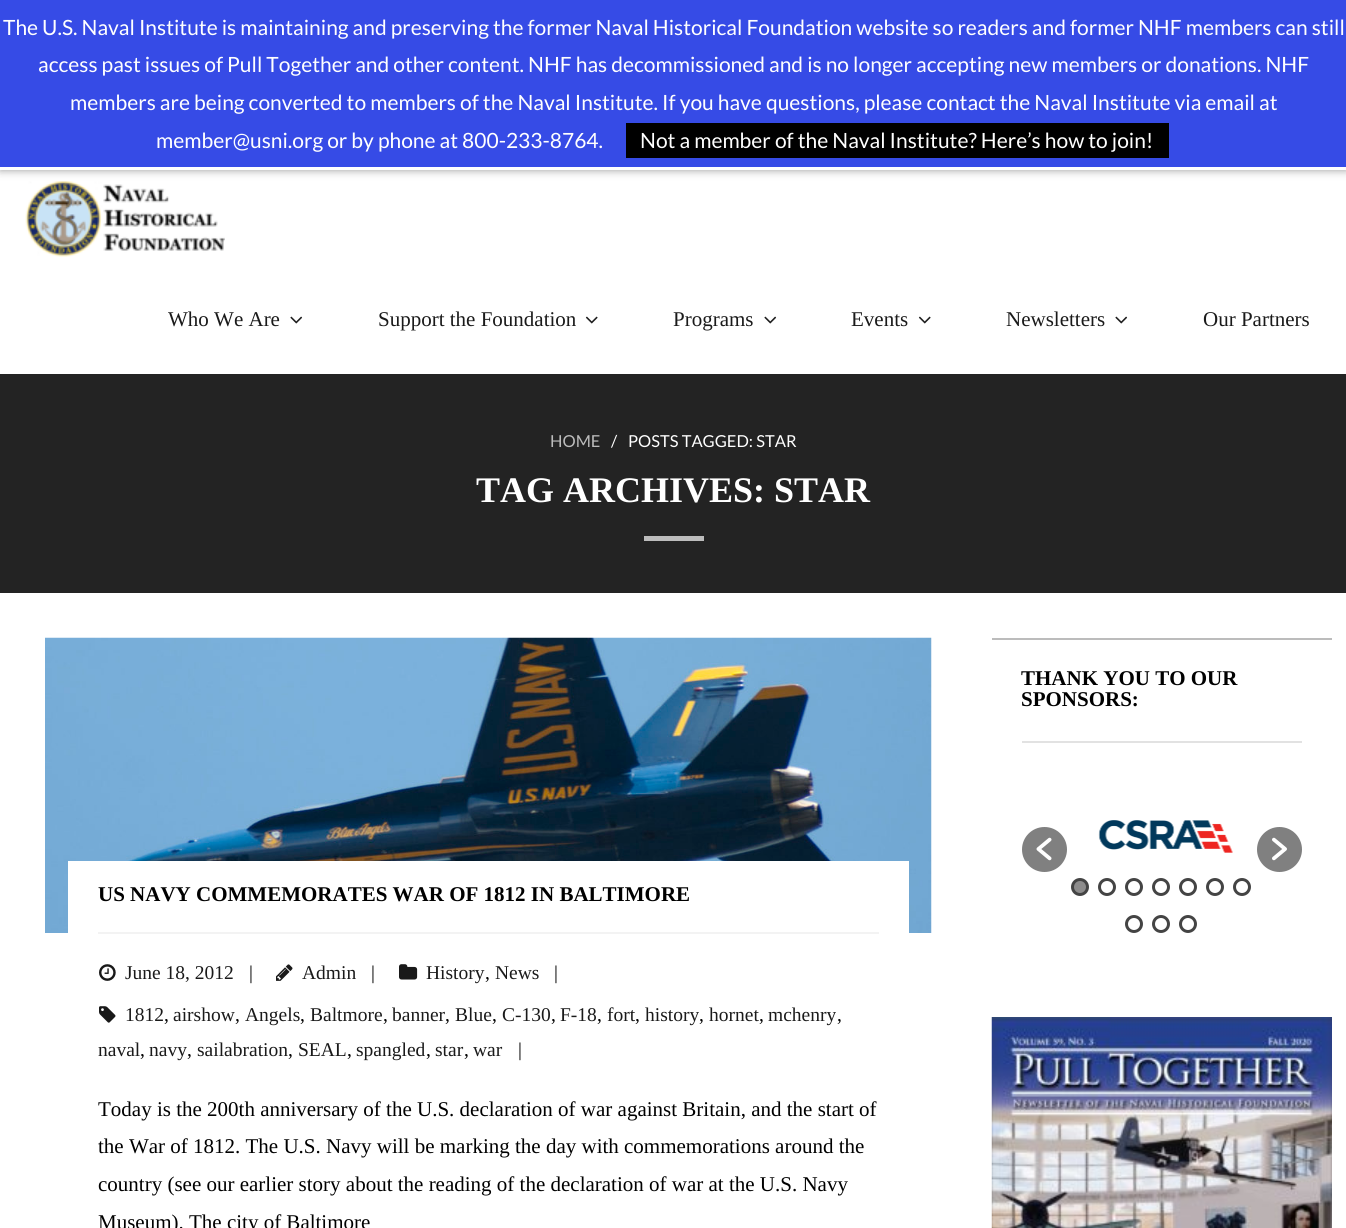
#include <cairo.h>
#include <math.h>
#include <stddef.h>


static void set_color(cairo_t *cr, unsigned color) {
    cairo_set_source_rgb(cr, (color >> 16) / 255.0, (color >> 8 & 255) / 255.0, (color & 255) / 255.0);
}

static void draw_text(cairo_t *cr, double x, double y, const char *s, const char *family, double size, int italic, int bold, unsigned color) {
    cairo_select_font_face(cr, family, italic ? CAIRO_FONT_SLANT_ITALIC : CAIRO_FONT_SLANT_NORMAL,
        bold ? CAIRO_FONT_WEIGHT_BOLD : CAIRO_FONT_WEIGHT_NORMAL);
    cairo_set_font_size(cr, size);
    set_color(cr, color);
    cairo_move_to(cr, x, y);
    cairo_show_text(cr, s);
}

static void fill_rect(cairo_t *cr, double x, double y, double w, double h, unsigned color) {
    set_color(cr, color);
    cairo_rectangle(cr, x, y, w, h);
    cairo_fill(cr);
}

static void rounded_rect(cairo_t *cr, double x, double y, double w, double h, double r) {
    cairo_new_sub_path(cr);
    cairo_arc(cr, x + w - r, y + h - r, r, 0, M_PI / 2);
    cairo_arc(cr, x + r, y + h - r, r, M_PI / 2, M_PI);
    cairo_arc(cr, x + r, y + r, r, M_PI, 1.5 * M_PI);
    cairo_arc(cr, x + w - r, y + r, r, 1.5 * M_PI, 2 * M_PI);
    cairo_close_path(cr);
}

static void draw_shadow(cairo_t *cr, double x, double y, double w, double h, double r, double blur, double alpha) {
    cairo_push_group_with_content(cr, CAIRO_CONTENT_ALPHA);
    cairo_set_operator(cr, CAIRO_OPERATOR_SOURCE);
    for (int i = 15; i >= -15 && fmin(w, h) + blur * i / 3 > 0; i -= 2) {
        double e = blur * i / 6;
        cairo_set_source_rgba(cr, 0, 0, 0, alpha * erfc((i - 1) / 8.5) / 2);
        rounded_rect(cr, x - e, y - e, w + 2 * e, h + 2 * e, fmax(0, fmin(r + e + blur * .6, fmin(w, h) / 2 + e)));
        cairo_fill(cr);
    }
    cairo_pattern_t *soft = cairo_pop_group(cr);
    cairo_mask(cr, soft);
    cairo_pattern_destroy(soft);
}

static void draw_image(cairo_t *cr, const char *path, double x, double y, double w, double h) {
    cairo_surface_t *image = cairo_image_surface_create_from_png(path);
    cairo_save(cr);
    cairo_set_source_surface(cr, image, x, y);
    cairo_rectangle(cr, x, y, w, h);
    cairo_fill(cr);
    cairo_restore(cr);
    cairo_surface_destroy(image);
}

int main(void) {
    cairo_surface_t *surface = cairo_image_surface_create(CAIRO_FORMAT_RGB24, 1346, 1228);
    cairo_t *cr = cairo_create(surface);
    cairo_font_options_t *options = cairo_font_options_create();
    cairo_font_options_set_hint_metrics(options, CAIRO_HINT_METRICS_OFF);
    cairo_font_options_set_hint_style(options, CAIRO_HINT_STYLE_NONE);
    cairo_set_font_options(cr, options);
    cairo_set_miter_limit(cr, 4);
    set_color(cr, 0xFFFFFF);
    cairo_paint(cr);
    draw_image(cr, "assets/img1.png", 25, 181, 200, 76);
    set_color(cr, 0x999999);
    draw_shadow(cr, 0, 0, 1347, 170, 0, 4.5, 1);
    fill_rect(cr, 0, 0, 1346, 167, 0x364BE6);
    fill_rect(cr, 0, 167, 1346, 3, 0xFFFFFF);
    draw_text(cr, 3, 35, "The U.S. Naval Institute is maintaining and preserving the former Naval Historical Foundation website so readers and former NHF members can still", "Lato", 21, 0, 0, 0xFFFFFF);
    draw_text(cr, 38, 72, "access past issues of Pull Together and other content. NHF has decommissioned and is no longer accepting new members or donations. NHF", "Lato", 21, 0, 0, 0xFFFFFF);
    draw_text(cr, 70, 110, "members are being converted to members of the Naval Institute. If you have questions, please contact the Naval Institute via email at", "Lato", 21, 0, 0, 0xFFFFFF);
    draw_text(cr, 156, 148, "member@usni.org or by phone at 800-233-8764.", "Lato", 21, 0, 0, 0xFFFFFF);
    fill_rect(cr, 626, 123, 543, 35, 0x000000);
    draw_text(cr, 640, 148, "Not a member of the Naval Institute? Here’s how to join!", "Lato", 21, 0, 0, 0xFFFFFF);
    draw_text(cr, 168, 326, "Who We Are", "Liberation Serif", 21, 0, 0, 0x1A1A1A);
    draw_image(cr, "assets/img2.png", 290, 316, 13, 8);
    draw_text(cr, 378, 326, "Support the Foundation", "Liberation Serif", 21, 0, 0, 0x1A1A1A);
    draw_image(cr, "assets/img3.png", 585, 316, 13, 8);
    draw_text(cr, 673, 326, "Programs", "Liberation Serif", 21, 0, 0, 0x1A1A1A);
    draw_image(cr, "assets/img2.png", 764, 316, 13, 8);
    draw_text(cr, 851, 326, "Events", "Liberation Serif", 21, 0, 0, 0x1A1A1A);
    draw_image(cr, "assets/img3.png", 918, 316, 13, 8);
    draw_text(cr, 1006, 326, "Newsletters", "Liberation Serif", 21, 0, 0, 0x1A1A1A);
    draw_image(cr, "assets/img2.png", 1115, 316, 13, 8);
    draw_text(cr, 1203, 326, "Our Partners", "Liberation Serif", 21, 0, 0, 0x1A1A1A);
    fill_rect(cr, 0, 374, 1346, 219, 0x232323);
    draw_text(cr, 550, 447, "HOME", "Lato", 16.5, 0, 0, 0xBCBCBC);
    draw_text(cr, 611, 447, "/", "Lato", 16.5, 0, 0, 0xFFFFFF);
    draw_text(cr, 628, 447, "POSTS TAGGED: STAR", "Lato", 16.5, 0, 0, 0xFFFFFF);
    draw_text(cr, 476, 502, "TAG ARCHIVES: STAR", "Liberation Serif", 36, 0, 1, 0xFFFFFF);
    fill_rect(cr, 644, 536, 60, 5, 0xBCBCBC);
    fill_rect(cr, 992, 638, 340, 2, 0xBCBCBC);
    fill_rect(cr, 1022, 741, 280, 2, 0xE2E2E2);
    draw_text(cr, 1021, 685, "THANK YOU TO OUR", "Liberation Serif", 21, 0, 1, 0x000000);
    draw_text(cr, 1021, 706, "SPONSORS:", "Liberation Serif", 21, 0, 1, 0x000000);
    set_color(cr, 0x808080);
    cairo_new_path(cr);
    cairo_arc(cr, 1044.5, 849.5, 22.5, 0, 2 * M_PI);
    cairo_fill(cr);
    draw_image(cr, "assets/img4.png", 1036, 837, 16, 24);
    draw_image(cr, "assets/img5.png", 1098, 820, 135, 33);
    cairo_arc(cr, 1279.5, 849.5, 22.5, 0, 2 * M_PI);
    cairo_fill(cr);
    draw_image(cr, "assets/img6.png", 1272, 837, 15, 24);
    set_color(cr, 0x8D8C8C);
    cairo_arc(cr, 1080, 887, 7.5, 0, 2 * M_PI);
    cairo_fill_preserve(cr);
    set_color(cr, 0x444444);
    cairo_set_line_width(cr, 3);
    cairo_stroke(cr);
    cairo_arc(cr, 1107, 887, 7.5, 0, 2 * M_PI);
    cairo_stroke(cr);
    cairo_arc(cr, 1134, 887, 7.5, 0, 2 * M_PI);
    cairo_stroke(cr);
    cairo_arc(cr, 1161, 887, 7.5, 0, 2 * M_PI);
    cairo_stroke(cr);
    cairo_arc(cr, 1188, 887, 7.5, 0, 2 * M_PI);
    cairo_stroke(cr);
    cairo_arc(cr, 1215, 887, 7.5, 0, 2 * M_PI);
    cairo_stroke(cr);
    cairo_arc(cr, 1242, 887, 7.5, 0, 2 * M_PI);
    cairo_stroke(cr);
    cairo_arc(cr, 1134, 924, 7.5, 0, 2 * M_PI);
    cairo_stroke(cr);
    cairo_arc(cr, 1161, 924, 7.5, 0, 2 * M_PI);
    cairo_stroke(cr);
    cairo_arc(cr, 1188, 924, 7.5, 0, 2 * M_PI);
    cairo_stroke(cr);
    draw_image(cr, "assets/img7.png", 991, 1017, 341, 211);
    draw_image(cr, "assets/img8.png", 45, 637, 887, 296);
    fill_rect(cr, 68, 861, 841, 72, 0xFFFFFF);
    fill_rect(cr, 98, 932, 781, 2, 0xF3F3F3);
    draw_text(cr, 98, 901, "US NAVY COMMEMORATES WAR OF 1812 IN BALTIMORE", "Liberation Serif", 21, 0, 1, 0x000000);
    draw_image(cr, "assets/img9.png", 99, 964, 17, 17);
    draw_text(cr, 125, 979, "June 18, 2012", "Liberation Serif", 19.5, 0, 0, 0x1A1A1A);
    draw_text(cr, 249, 979, "|", "Liberation Serif", 19.5, 0, 0, 0x000000);
    draw_image(cr, "assets/img10.png", 276, 964, 17, 17);
    draw_text(cr, 302, 979, "Admin", "Liberation Serif", 19.5, 0, 0, 0x1A1A1A);
    draw_text(cr, 371, 979, "|", "Liberation Serif", 19.5, 0, 0, 0x000000);
    draw_image(cr, "assets/img11.png", 399, 964, 19, 16);
    draw_text(cr, 426, 979, "History", "Liberation Serif", 19.5, 0, 0, 0x1A1A1A);
    draw_text(cr, 485, 979, ",", "Liberation Serif", 19.5, 0, 0, 0x000000);
    draw_text(cr, 495, 979, "News", "Liberation Serif", 19.5, 0, 0, 0x1A1A1A);
    draw_text(cr, 554, 979, "|", "Liberation Serif", 19.5, 0, 0, 0x000000);
    draw_image(cr, "assets/img12.png", 99, 1006, 17, 17);
    draw_text(cr, 125, 1021, "1812", "Liberation Serif", 19.5, 0, 0, 0x1A1A1A);
    draw_text(cr, 164, 1021, ",", "Liberation Serif", 19.5, 0, 0, 0x000000);
    draw_text(cr, 235, 1021, ",", "Liberation Serif", 19.5, 0, 0, 0x000000);
    draw_text(cr, 173, 1021, "airshow", "Liberation Serif", 19.5, 0, 0, 0x1A1A1A);
    draw_text(cr, 245, 1021, "Angels", "Liberation Serif", 19.5, 0, 0, 0x1A1A1A);
    draw_text(cr, 300, 1021, ",", "Liberation Serif", 19.5, 0, 0, 0x000000);
    draw_text(cr, 310, 1021, "Baltmore", "Liberation Serif", 19.5, 0, 0, 0x1A1A1A);
    draw_text(cr, 383, 1021, ",", "Liberation Serif", 19.5, 0, 0, 0x000000);
    draw_text(cr, 392, 1021, "banner", "Liberation Serif", 19.5, 0, 0, 0x1A1A1A);
    draw_text(cr, 445, 1021, ",", "Liberation Serif", 19.5, 0, 0, 0x000000);
    draw_text(cr, 455, 1021, "Blue", "Liberation Serif", 19.5, 0, 0, 0x1A1A1A);
    draw_text(cr, 492, 1021, ",", "Liberation Serif", 19.5, 0, 0, 0x000000);
    draw_text(cr, 502, 1021, "C-130", "Liberation Serif", 19.5, 0, 0, 0x1A1A1A);
    draw_text(cr, 551, 1021, ",", "Liberation Serif", 19.5, 0, 0, 0x000000);
    draw_text(cr, 560, 1021, "F-18", "Liberation Serif", 19.5, 0, 0, 0x1A1A1A);
    draw_text(cr, 597, 1021, ",", "Liberation Serif", 19.5, 0, 0, 0x000000);
    draw_text(cr, 607, 1021, "fort", "Liberation Serif", 19.5, 0, 0, 0x1A1A1A);
    draw_text(cr, 635, 1021, ",", "Liberation Serif", 19.5, 0, 0, 0x000000);
    draw_text(cr, 645, 1021, "history", "Liberation Serif", 19.5, 0, 0, 0x1A1A1A);
    draw_text(cr, 699, 1021, ",", "Liberation Serif", 19.5, 0, 0, 0x000000);
    draw_text(cr, 709, 1021, "hornet", "Liberation Serif", 19.5, 0, 0, 0x1A1A1A);
    draw_text(cr, 759, 1021, ",", "Liberation Serif", 19.5, 0, 0, 0x000000);
    draw_text(cr, 768, 1021, "mchenry", "Liberation Serif", 19.5, 0, 0, 0x1A1A1A);
    draw_text(cr, 837, 1021, ",", "Liberation Serif", 19.5, 0, 0, 0x000000);
    draw_text(cr, 98, 1056, "naval", "Liberation Serif", 19.5, 0, 0, 0x1A1A1A);
    draw_text(cr, 140, 1056, ",", "Liberation Serif", 19.5, 0, 0, 0x000000);
    draw_text(cr, 149, 1056, "navy", "Liberation Serif", 19.5, 0, 0, 0x1A1A1A);
    draw_text(cr, 187, 1056, ",", "Liberation Serif", 19.5, 0, 0, 0x000000);
    draw_text(cr, 197, 1056, "sailabration", "Liberation Serif", 19.5, 0, 0, 0x1A1A1A);
    draw_text(cr, 288, 1056, ",", "Liberation Serif", 19.5, 0, 0, 0x000000);
    draw_text(cr, 298, 1056, "SEAL", "Liberation Serif", 19.5, 0, 0, 0x1A1A1A);
    draw_text(cr, 347, 1056, ",", "Liberation Serif", 19.5, 0, 0, 0x000000);
    draw_text(cr, 356, 1056, "spangled", "Liberation Serif", 19.5, 0, 0, 0x1A1A1A);
    draw_text(cr, 426, 1056, ",", "Liberation Serif", 19.5, 0, 0, 0x000000);
    draw_text(cr, 435, 1056, "star", "Liberation Serif", 19.5, 0, 0, 0x1A1A1A);
    draw_text(cr, 464, 1056, ",", "Liberation Serif", 19.5, 0, 0, 0x000000);
    draw_text(cr, 473, 1056, "war", "Liberation Serif", 19.5, 0, 0, 0x1A1A1A);
    draw_text(cr, 518, 1056, "|", "Liberation Serif", 19.5, 0, 0, 0x000000);
    draw_text(cr, 98, 1116, "Today is the 200th anniversary of the U.S. declaration of war against Britain, and the start of", "Liberation Serif", 21, 0, 0, 0x000000);
    draw_text(cr, 98, 1153, "the War of 1812. The U.S. Navy will be marking the day with commemorations around the", "Liberation Serif", 21, 0, 0, 0x000000);
    draw_text(cr, 98, 1191, "country (see our earlier story about the reading of the declaration of war at the U.S. Navy", "Liberation Serif", 21, 0, 0, 0x000000);
    draw_text(cr, 98, 1229, "Museum). The city of Baltimore", "Liberation Serif", 21, 0, 0, 0x000000);
    cairo_surface_write_to_png(surface, "output.png");
    cairo_font_options_destroy(options);
    cairo_destroy(cr);
    cairo_surface_destroy(surface);
    return 0;
}
